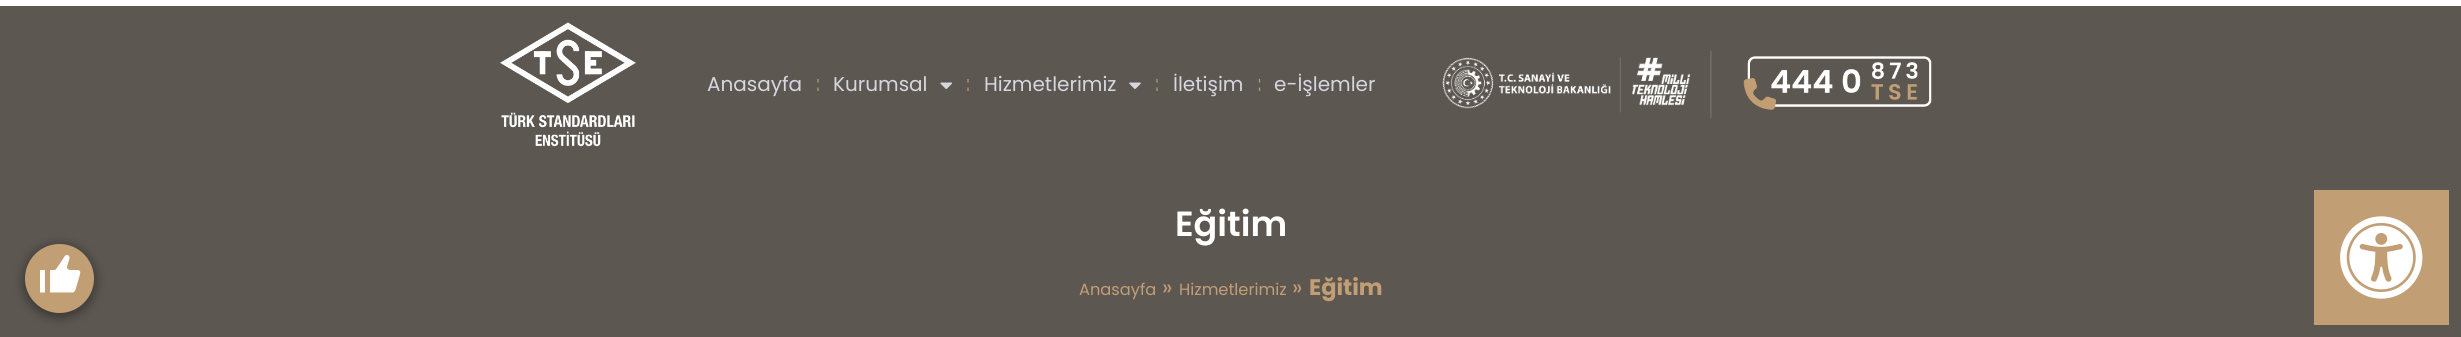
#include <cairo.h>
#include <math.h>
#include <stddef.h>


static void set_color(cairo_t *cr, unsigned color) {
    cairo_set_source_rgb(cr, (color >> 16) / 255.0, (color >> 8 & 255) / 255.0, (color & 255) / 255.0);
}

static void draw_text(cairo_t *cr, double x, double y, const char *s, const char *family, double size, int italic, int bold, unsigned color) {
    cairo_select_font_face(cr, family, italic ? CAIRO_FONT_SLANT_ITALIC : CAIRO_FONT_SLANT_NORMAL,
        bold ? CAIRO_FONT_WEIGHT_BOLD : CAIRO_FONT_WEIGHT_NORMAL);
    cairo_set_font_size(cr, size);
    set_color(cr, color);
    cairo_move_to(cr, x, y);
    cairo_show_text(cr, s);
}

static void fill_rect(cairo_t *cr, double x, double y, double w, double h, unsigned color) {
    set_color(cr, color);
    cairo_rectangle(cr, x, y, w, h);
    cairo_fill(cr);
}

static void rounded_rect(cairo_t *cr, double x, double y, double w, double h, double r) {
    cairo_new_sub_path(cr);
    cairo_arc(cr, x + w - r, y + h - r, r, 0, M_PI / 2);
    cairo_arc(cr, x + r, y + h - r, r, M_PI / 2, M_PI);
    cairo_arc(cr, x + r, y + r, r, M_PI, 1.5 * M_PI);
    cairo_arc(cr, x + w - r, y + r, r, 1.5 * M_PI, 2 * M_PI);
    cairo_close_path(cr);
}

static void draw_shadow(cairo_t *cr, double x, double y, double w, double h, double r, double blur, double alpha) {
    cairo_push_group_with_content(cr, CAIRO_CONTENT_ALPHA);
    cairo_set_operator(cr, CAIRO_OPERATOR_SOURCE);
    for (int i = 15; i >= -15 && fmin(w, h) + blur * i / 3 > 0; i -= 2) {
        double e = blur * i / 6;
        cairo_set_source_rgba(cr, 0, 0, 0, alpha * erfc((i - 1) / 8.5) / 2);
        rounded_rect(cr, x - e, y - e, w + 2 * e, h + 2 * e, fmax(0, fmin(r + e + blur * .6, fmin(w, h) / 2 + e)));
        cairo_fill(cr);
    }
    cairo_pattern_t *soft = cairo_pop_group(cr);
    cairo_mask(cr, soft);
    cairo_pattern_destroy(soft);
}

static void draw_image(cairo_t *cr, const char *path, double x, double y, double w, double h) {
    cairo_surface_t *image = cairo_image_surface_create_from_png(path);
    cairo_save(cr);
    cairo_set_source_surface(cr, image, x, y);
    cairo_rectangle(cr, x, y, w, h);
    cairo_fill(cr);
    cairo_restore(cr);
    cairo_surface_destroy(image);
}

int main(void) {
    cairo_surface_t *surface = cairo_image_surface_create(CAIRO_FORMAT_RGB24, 2461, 337);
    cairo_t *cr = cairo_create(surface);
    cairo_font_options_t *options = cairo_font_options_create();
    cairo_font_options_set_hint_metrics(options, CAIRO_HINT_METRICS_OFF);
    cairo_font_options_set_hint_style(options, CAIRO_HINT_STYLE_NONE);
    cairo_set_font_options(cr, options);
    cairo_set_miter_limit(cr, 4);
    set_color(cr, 0xFFFFFF);
    cairo_paint(cr);
    fill_rect(cr, 0, 6, 2461, 331, 0x5C5751);
    set_color(cr, 0x000000);
    draw_shadow(cr, 23, 244, 73, 74, 36.5, 5, 0.35);
    set_color(cr, 0xC29E75);
    cairo_arc(cr, 59.5, 278.5, 34.5, 0, 2 * M_PI);
    cairo_fill(cr);
    draw_image(cr, "assets/img1.png", 40, 255, 41, 38);
    draw_image(cr, "assets/img2.png", 500, 22, 136, 125);
    draw_text(cr, 707, 91, "Anasayfa", "Poppins", 20, 0, 0, 0xD6D6E0);
    cairo_new_path(cr);
    cairo_move_to(cr, 818, 79);
    cairo_line_to(cr, 818, 82.5);
    cairo_move_to(cr, 818, 87.5);
    cairo_line_to(cr, 818, 91);
    set_color(cr, 0xC29E75);
    cairo_set_line_width(cr, 1.2);
    cairo_stroke(cr);
    draw_text(cr, 833, 91, "Kurumsal", "Poppins", 20, 0, 0, 0xD6D6E0);
    draw_image(cr, "assets/img3.png", 940, 82, 12, 7);
    cairo_new_path(cr);
    cairo_move_to(cr, 968, 79);
    cairo_line_to(cr, 968, 82.5);
    cairo_move_to(cr, 968, 87.5);
    cairo_line_to(cr, 968, 91);
    set_color(cr, 0xC29E75);
    cairo_stroke(cr);
    draw_text(cr, 984, 91, "Hizmetlerimiz", "Poppins", 20, 0, 0, 0xD6D6E0);
    draw_image(cr, "assets/img4.png", 1129, 82, 12, 7);
    cairo_new_path(cr);
    cairo_move_to(cr, 1157, 79);
    cairo_line_to(cr, 1157, 82.5);
    cairo_move_to(cr, 1157, 87.5);
    cairo_line_to(cr, 1157, 91);
    set_color(cr, 0xC29E75);
    cairo_stroke(cr);
    draw_text(cr, 1173, 91, "İletişim", "Poppins", 20, 0, 0, 0xD6D6E0);
    cairo_new_path(cr);
    cairo_move_to(cr, 1259.5, 79);
    cairo_line_to(cr, 1259.5, 82.5);
    cairo_move_to(cr, 1259.5, 87.5);
    cairo_line_to(cr, 1259.5, 91);
    set_color(cr, 0xC29E75);
    cairo_stroke(cr);
    draw_text(cr, 1274, 91, "e-İşlemler", "Poppins", 20, 0, 0, 0xD6D6E0);
    draw_image(cr, "assets/img5.png", 1442, 50, 270, 68);
    draw_image(cr, "assets/img6.png", 1743, 56, 189, 54);
    draw_text(cr, 1175, 236, "Eğitim", "Poppins SemiBold", 35, 0, 0, 0xFFFFFF);
    draw_text(cr, 1079, 295, "Anasayfa", "Poppins", 16.25, 0, 0, 0xC29E75);
    draw_text(cr, 1162, 295, "»", "Poppins", 22.5, 0, 0, 0xC29E75);
    draw_text(cr, 1179, 295, "Hizmetlerimiz", "Poppins", 16.25, 0, 0, 0xC29E75);
    draw_text(cr, 1292, 295, "»", "Poppins", 22.5, 0, 0, 0xC29E75);
    draw_text(cr, 1309, 295, "Eğitim", "Poppins", 22.5, 0, 1, 0xC29E75);
    fill_rect(cr, 2314, 190, 135, 135, 0xC29E75);
    draw_image(cr, "assets/img7.png", 2340, 216, 83, 83);
    cairo_surface_write_to_png(surface, "output.png");
    cairo_font_options_destroy(options);
    cairo_destroy(cr);
    cairo_surface_destroy(surface);
    return 0;
}
